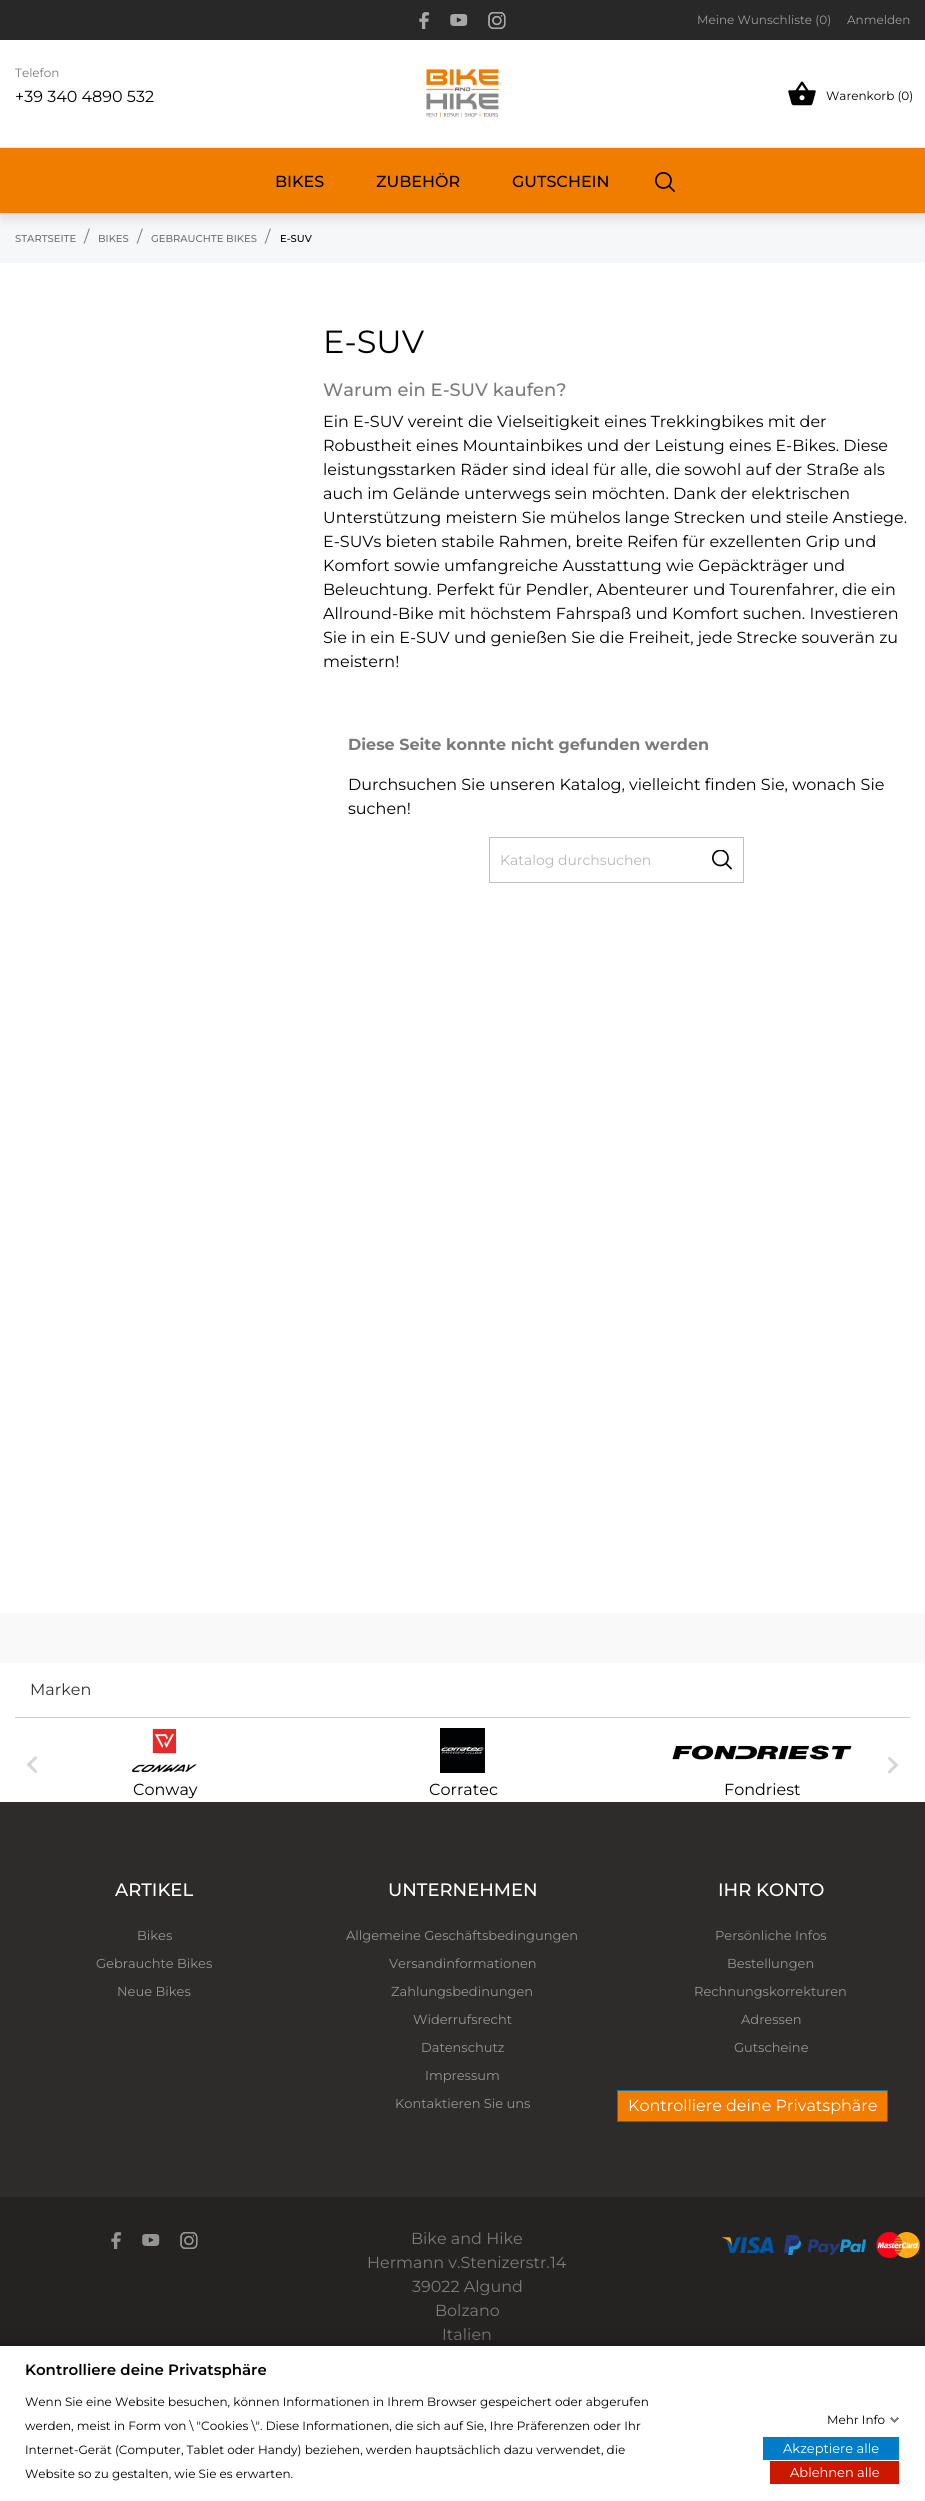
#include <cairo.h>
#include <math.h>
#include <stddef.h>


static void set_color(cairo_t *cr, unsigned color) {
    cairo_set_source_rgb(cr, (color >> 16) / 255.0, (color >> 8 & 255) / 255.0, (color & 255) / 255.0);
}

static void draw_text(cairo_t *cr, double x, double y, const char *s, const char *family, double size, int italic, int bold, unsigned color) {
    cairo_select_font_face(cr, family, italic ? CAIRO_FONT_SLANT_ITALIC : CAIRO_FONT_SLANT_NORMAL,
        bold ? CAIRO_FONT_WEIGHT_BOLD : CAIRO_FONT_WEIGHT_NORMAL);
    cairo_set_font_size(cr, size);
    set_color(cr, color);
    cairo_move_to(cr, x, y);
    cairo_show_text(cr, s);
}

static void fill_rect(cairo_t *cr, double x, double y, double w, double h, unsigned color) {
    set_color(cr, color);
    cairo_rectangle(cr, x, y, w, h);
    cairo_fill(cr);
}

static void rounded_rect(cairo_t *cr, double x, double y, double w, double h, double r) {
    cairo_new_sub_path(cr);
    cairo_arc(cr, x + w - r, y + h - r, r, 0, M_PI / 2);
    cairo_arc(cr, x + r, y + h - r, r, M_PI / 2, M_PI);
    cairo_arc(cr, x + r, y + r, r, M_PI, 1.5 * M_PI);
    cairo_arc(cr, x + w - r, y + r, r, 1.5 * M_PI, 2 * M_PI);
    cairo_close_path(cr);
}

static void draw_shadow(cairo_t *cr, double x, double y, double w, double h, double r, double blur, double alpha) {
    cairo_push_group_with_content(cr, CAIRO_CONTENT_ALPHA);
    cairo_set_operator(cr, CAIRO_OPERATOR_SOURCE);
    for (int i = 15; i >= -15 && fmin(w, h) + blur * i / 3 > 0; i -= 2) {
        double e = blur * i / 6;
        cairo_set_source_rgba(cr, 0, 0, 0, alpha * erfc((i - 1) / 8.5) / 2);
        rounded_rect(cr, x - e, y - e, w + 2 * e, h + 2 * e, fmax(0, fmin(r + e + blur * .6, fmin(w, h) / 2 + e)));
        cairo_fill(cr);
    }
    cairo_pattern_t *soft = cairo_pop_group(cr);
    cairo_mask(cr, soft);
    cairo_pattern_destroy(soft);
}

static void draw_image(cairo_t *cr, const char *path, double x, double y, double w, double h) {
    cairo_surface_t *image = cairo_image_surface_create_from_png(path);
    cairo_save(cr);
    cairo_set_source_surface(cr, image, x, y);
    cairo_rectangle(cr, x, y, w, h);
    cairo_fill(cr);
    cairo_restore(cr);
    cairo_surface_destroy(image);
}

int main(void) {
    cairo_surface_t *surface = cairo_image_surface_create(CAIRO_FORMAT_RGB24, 925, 2501);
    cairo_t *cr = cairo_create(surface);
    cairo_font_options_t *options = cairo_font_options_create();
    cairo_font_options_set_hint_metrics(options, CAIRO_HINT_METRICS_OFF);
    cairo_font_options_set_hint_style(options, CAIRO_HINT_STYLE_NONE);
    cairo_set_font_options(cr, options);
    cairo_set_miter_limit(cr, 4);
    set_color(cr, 0xFFFFFF);
    cairo_paint(cr);
    fill_rect(cr, 0, 0, 925, 40, 0x282828);
    draw_image(cr, "assets/img1.png", 419, 12, 11, 17);
    draw_image(cr, "assets/img2.png", 450, 14, 18, 12);
    draw_image(cr, "assets/img3.png", 488, 12, 18, 17);
    draw_text(cr, 697, 24, "Meine Wunschliste (0)", "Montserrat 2 Thin", 12, 0, 0, 0x9C9B9B);
    draw_text(cr, 847, 24, "Anmelden", "Montserrat 2 Thin", 12, 0, 0, 0x9C9B9B);
    draw_text(cr, 15, 77, "Telefon", "Montserrat 2 Thin", 12, 0, 0, 0x7A7A7A);
    draw_text(cr, 15, 102, "+39 340 4890 532", "Montserrat 2 Thin", 16, 0, 0, 0x000000);
    draw_image(cr, "assets/img4.png", 426, 68, 74, 50);
    draw_image(cr, "assets/img5.png", 788, 81, 28, 25);
    draw_text(cr, 826, 100, "Warenkorb (0)", "Montserrat 2 Thin", 12, 0, 0, 0x000000);
    fill_rect(cr, 0, 213, 925, 50, 0xF6F7F9);
    set_color(cr, 0x000000);
    draw_shadow(cr, 0, 153, 925, 66, 0, 5.5, 0.1);
    fill_rect(cr, 0, 148, 925, 65, 0xF07D00);
    fill_rect(cr, 0, 147, 925, 1, 0xEEEEEE);
    draw_text(cr, 275, 187, "BIKES", "Montserrat Thin", 16, 0, 0, 0x000000);
    draw_text(cr, 376, 187, "ZUBEHÖR", "Montserrat Thin", 16, 0, 0, 0x000000);
    draw_text(cr, 512, 187, "GUTSCHEIN", "Montserrat Thin", 16, 0, 0, 0x000000);
    draw_image(cr, "assets/img6.png", 655, 172, 20, 20);
    draw_text(cr, 15, 242, "STARTSEITE", "Montserrat Thin", 10, 0, 0, 0x737373);
    draw_text(cr, 84, 242, "/", "Montserrat 2 Thin", 16, 0, 0, 0x7A7A7A);
    draw_text(cr, 98, 242, "BIKES", "Montserrat Thin", 10, 0, 0, 0x737373);
    draw_text(cr, 137, 242, "/", "Montserrat 2 Thin", 16, 0, 0, 0x7A7A7A);
    draw_text(cr, 151, 242, "GEBRAUCHTE BIKES", "Montserrat Thin", 10, 0, 0, 0x737373);
    draw_text(cr, 265, 242, "/", "Montserrat 2 Thin", 16, 0, 0, 0x7A7A7A);
    draw_text(cr, 280, 242, "E-SUV", "Montserrat Thin", 10, 0, 0, 0x000000);
    draw_text(cr, 323, 353, "E-SUV", "Montserrat 2 Thin", 32, 0, 0, 0x000000);
    draw_text(cr, 323, 396, "Warum ein E-SUV kaufen?", "Montserrat Thin", 18, 0, 0, 0x7A7A7A);
    draw_text(cr, 323, 427, "Ein E-SUV vereint die Vielseitigkeit eines Trekkingbikes mit der", "Montserrat 2 Thin", 16, 0, 0, 0x000000);
    draw_text(cr, 323, 451, "Robustheit eines Mountainbikes und der Leistung eines E-Bikes. Diese", "Montserrat 2 Thin", 16, 0, 0, 0x000000);
    draw_text(cr, 323, 475, "leistungsstarken Räder sind ideal für alle, die sowohl auf der Straße als", "Montserrat 2 Thin", 16, 0, 0, 0x000000);
    draw_text(cr, 323, 499, "auch im Gelände unterwegs sein möchten. Dank der elektrischen", "Montserrat 2 Thin", 16, 0, 0, 0x000000);
    draw_text(cr, 323, 523, "Unterstützung meistern Sie mühelos lange Strecken und steile Anstiege.", "Montserrat 2 Thin", 16, 0, 0, 0x000000);
    draw_text(cr, 323, 547, "E-SUVs bieten stabile Rahmen, breite Reifen für exzellenten Grip und", "Montserrat 2 Thin", 16, 0, 0, 0x000000);
    draw_text(cr, 323, 571, "Komfort sowie umfangreiche Ausstattung wie Gepäckträger und", "Montserrat 2 Thin", 16, 0, 0, 0x000000);
    draw_text(cr, 323, 595, "Beleuchtung. Perfekt für Pendler, Abenteurer und Tourenfahrer, die ein", "Montserrat 2 Thin", 16, 0, 0, 0x000000);
    draw_text(cr, 323, 619, "Allround-Bike mit höchstem Fahrspaß und Komfort suchen. Investieren", "Montserrat 2 Thin", 16, 0, 0, 0x000000);
    draw_text(cr, 323, 643, "Sie in ein E-SUV und genießen Sie die Freiheit, jede Strecke souverän zu", "Montserrat 2 Thin", 16, 0, 0, 0x000000);
    draw_text(cr, 323, 667, "meistern!", "Montserrat 2 Thin", 16, 0, 0, 0x000000);
    draw_text(cr, 348, 750, "Diese Seite konnte nicht gefunden werden", "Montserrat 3 Thin", 16, 0, 0, 0x7A7A7A);
    draw_text(cr, 348, 790, "Durchsuchen Sie unseren Katalog, vielleicht finden Sie, wonach Sie", "Montserrat 2 Thin", 16, 0, 0, 0x000000);
    draw_text(cr, 348, 814, "suchen!", "Montserrat 2 Thin", 16, 0, 0, 0x000000);
    cairo_rectangle(cr, 489.5, 837.5, 254, 45);
    set_color(cr, 0xBFBFBF);
    cairo_set_line_width(cr, 1);
    cairo_stroke(cr);
    draw_text(cr, 500, 865, "Katalog durchsuchen", "Montserrat 2 Thin", 14, 0, 0, 0xB7B7B7);
    draw_image(cr, "assets/img7.png", 712, 850, 20, 20);
    fill_rect(cr, 0, 1613, 925, 50, 0xF9F9FA);
    fill_rect(cr, 15, 1717, 895, 1, 0xCCCCCC);
    draw_text(cr, 30, 1695, "Marken", "Montserrat 2 Thin", 16, 0, 0, 0x333333);
    set_color(cr, 0xD6D6D6);
    cairo_new_path(cr);
    cairo_move_to(cr, 37.5, 1771.5);
    cairo_line_to(cr, 35.5, 1773.5);
    cairo_line_to(cr, 26.5, 1764.5);
    cairo_line_to(cr, 35.5, 1756);
    cairo_line_to(cr, 37.5, 1758);
    cairo_line_to(cr, 31, 1764.5);
    cairo_close_path(cr);
    cairo_fill(cr);
    cairo_new_path(cr);
    cairo_move_to(cr, 887.5, 1772);
    cairo_line_to(cr, 894, 1765);
    cairo_line_to(cr, 887.5, 1758.5);
    cairo_line_to(cr, 889.5, 1756.5);
    cairo_line_to(cr, 898.5, 1765);
    cairo_line_to(cr, 889.5, 1774);
    cairo_close_path(cr);
    cairo_fill(cr);
    draw_image(cr, "assets/img8.png", 132, 1728, 65, 45);
    draw_text(cr, 133, 1795, "Conway", "Montserrat 2 Thin", 16, 0, 0, 0x000000);
    draw_image(cr, "assets/img9.png", 440, 1728, 45, 45);
    draw_text(cr, 429, 1795, "Corratec", "Montserrat 2 Thin", 16, 0, 0, 0x000000);
    draw_image(cr, "assets/img10.png", 672, 1745, 180, 15);
    draw_text(cr, 724, 1795, "Fondriest", "Montserrat 2 Thin", 16, 0, 0, 0x000000);
    fill_rect(cr, 0, 1802, 925, 395, 0x2E2B2B);
    draw_text(cr, 115, 1896, "ARTIKEL", "Montserrat Thin", 18, 0, 0, 0xFFFFFF);
    draw_text(cr, 137, 1940, "Bikes", "Montserrat 2 Thin", 13, 0, 0, 0x959494);
    draw_text(cr, 96, 1968, "Gebrauchte Bikes", "Montserrat 2 Thin", 13, 0, 0, 0x959494);
    draw_text(cr, 117, 1996, "Neue Bikes", "Montserrat 2 Thin", 13, 0, 0, 0x959494);
    draw_text(cr, 388, 1896, "UNTERNEHMEN", "Montserrat Thin", 18, 0, 0, 0xFFFFFF);
    draw_text(cr, 346, 1940, "Allgemeine Geschäftsbedingungen", "Montserrat 2 Thin", 13, 0, 0, 0x959494);
    draw_text(cr, 389, 1968, "Versandinformationen", "Montserrat 2 Thin", 13, 0, 0, 0x959494);
    draw_text(cr, 391, 1996, "Zahlungsbedinungen", "Montserrat 2 Thin", 13, 0, 0, 0x959494);
    draw_text(cr, 413, 2024, "Widerrufsrecht", "Montserrat 2 Thin", 13, 0, 0, 0x959494);
    draw_text(cr, 421, 2052, "Datenschutz", "Montserrat 2 Thin", 13, 0, 0, 0x959494);
    draw_text(cr, 425, 2080, "Impressum", "Montserrat 2 Thin", 13, 0, 0, 0x959494);
    draw_text(cr, 395, 2108, "Kontaktieren Sie uns", "Montserrat 2 Thin", 13, 0, 0, 0x959494);
    draw_text(cr, 718, 1896, "IHR KONTO", "Montserrat Thin", 18, 0, 0, 0xFFFFFF);
    draw_text(cr, 715, 1940, "Persönliche Infos", "Montserrat 2 Thin", 13, 0, 0, 0x959494);
    draw_text(cr, 727, 1968, "Bestellungen", "Montserrat 2 Thin", 13, 0, 0, 0x959494);
    draw_text(cr, 694, 1996, "Rechnungskorrekturen", "Montserrat 2 Thin", 13, 0, 0, 0x959494);
    draw_text(cr, 741, 2024, "Adressen", "Montserrat 2 Thin", 13, 0, 0, 0x959494);
    draw_text(cr, 734, 2052, "Gutscheine", "Montserrat 2 Thin", 13, 0, 0, 0x959494);
    set_color(cr, 0xF07D00);
    cairo_rectangle(cr, 617.5, 2090.5, 270, 31);
    cairo_fill_preserve(cr);
    set_color(cr, 0x1B768B);
    cairo_stroke(cr);
    draw_text(cr, 628, 2111, "Kontrolliere deine Privatsphäre", "Montserrat 2 Thin", 16, 0, 0, 0xFFFFFF);
    fill_rect(cr, 0, 2197, 925, 149, 0x252222);
    draw_image(cr, "assets/img11.png", 111, 2232, 11, 17);
    draw_image(cr, "assets/img12.png", 142, 2234, 18, 12);
    draw_image(cr, "assets/img13.png", 180, 2232, 18, 17);
    draw_text(cr, 411, 2244, "Bike and Hike", "Montserrat 2 Thin", 16, 0, 0, 0x7A7A7A);
    draw_text(cr, 367, 2268, "Hermann v.Stenizerstr.14", "Montserrat 2 Thin", 16, 0, 0, 0x7A7A7A);
    draw_text(cr, 412, 2292, "39022 Algund", "Montserrat 2 Thin", 16, 0, 0, 0x7A7A7A);
    draw_text(cr, 435, 2316, "Bolzano", "Montserrat 2 Thin", 16, 0, 0, 0x7A7A7A);
    draw_text(cr, 442, 2340, "Italien", "Montserrat 2 Thin", 16, 0, 0, 0x7A7A7A);
    draw_image(cr, "assets/img14.png", 722, 2237, 52, 16);
    draw_image(cr, "assets/img15.png", 784, 2235, 82, 20);
    draw_image(cr, "assets/img16.png", 876, 2232, 44, 26);
    set_color(cr, 0x121212);
    draw_shadow(cr, 0, 2346, 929, 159, 0, 7, 1);
    fill_rect(cr, 0, 2346, 925, 155, 0xFFFFFF);
    draw_text(cr, 25, 2375, "Kontrolliere deine Privatsphäre", "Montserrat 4 Thin", 15, 0, 0, 0x000000);
    draw_text(cr, 25, 2406, "Wenn Sie eine Website besuchen, können Informationen in Ihrem Browser gespeichert oder abgerufen", "Montserrat 2 Thin", 12, 0, 0, 0x000000);
    draw_text(cr, 25, 2430, "werden, meist in Form von \\ \"Cookies \\\". Diese Informationen, die sich auf Sie, Ihre Präferenzen oder Ihr", "Montserrat 2 Thin", 12, 0, 0, 0x000000);
    draw_text(cr, 25, 2454, "Internet-Gerät (Computer, Tablet oder Handy) beziehen, werden hauptsächlich dazu verwendet, die", "Montserrat 2 Thin", 12, 0, 0, 0x000000);
    draw_text(cr, 25, 2478, "Website so zu gestalten, wie Sie es erwarten.", "Montserrat 2 Thin", 12, 0, 0, 0x000000);
    draw_text(cr, 827, 2424, "Mehr Info", "Montserrat 2 Thin", 12, 0, 0, 0x000000);
    draw_image(cr, "assets/img17.png", 890, 2417, 9, 6);
    fill_rect(cr, 763, 2437, 136, 23, 0x007DC6);
    draw_text(cr, 783, 2453, "Akzeptiere alle", "Montserrat 2 Thin", 13, 0, 0, 0xFFFFFF);
    fill_rect(cr, 770, 2461, 129, 23, 0xCC1800);
    draw_text(cr, 790, 2477, "Ablehnen alle", "Montserrat 2 Thin", 13, 0, 0, 0xFFFFFF);
    cairo_surface_write_to_png(surface, "output.png");
    cairo_font_options_destroy(options);
    cairo_destroy(cr);
    cairo_surface_destroy(surface);
    return 0;
}
